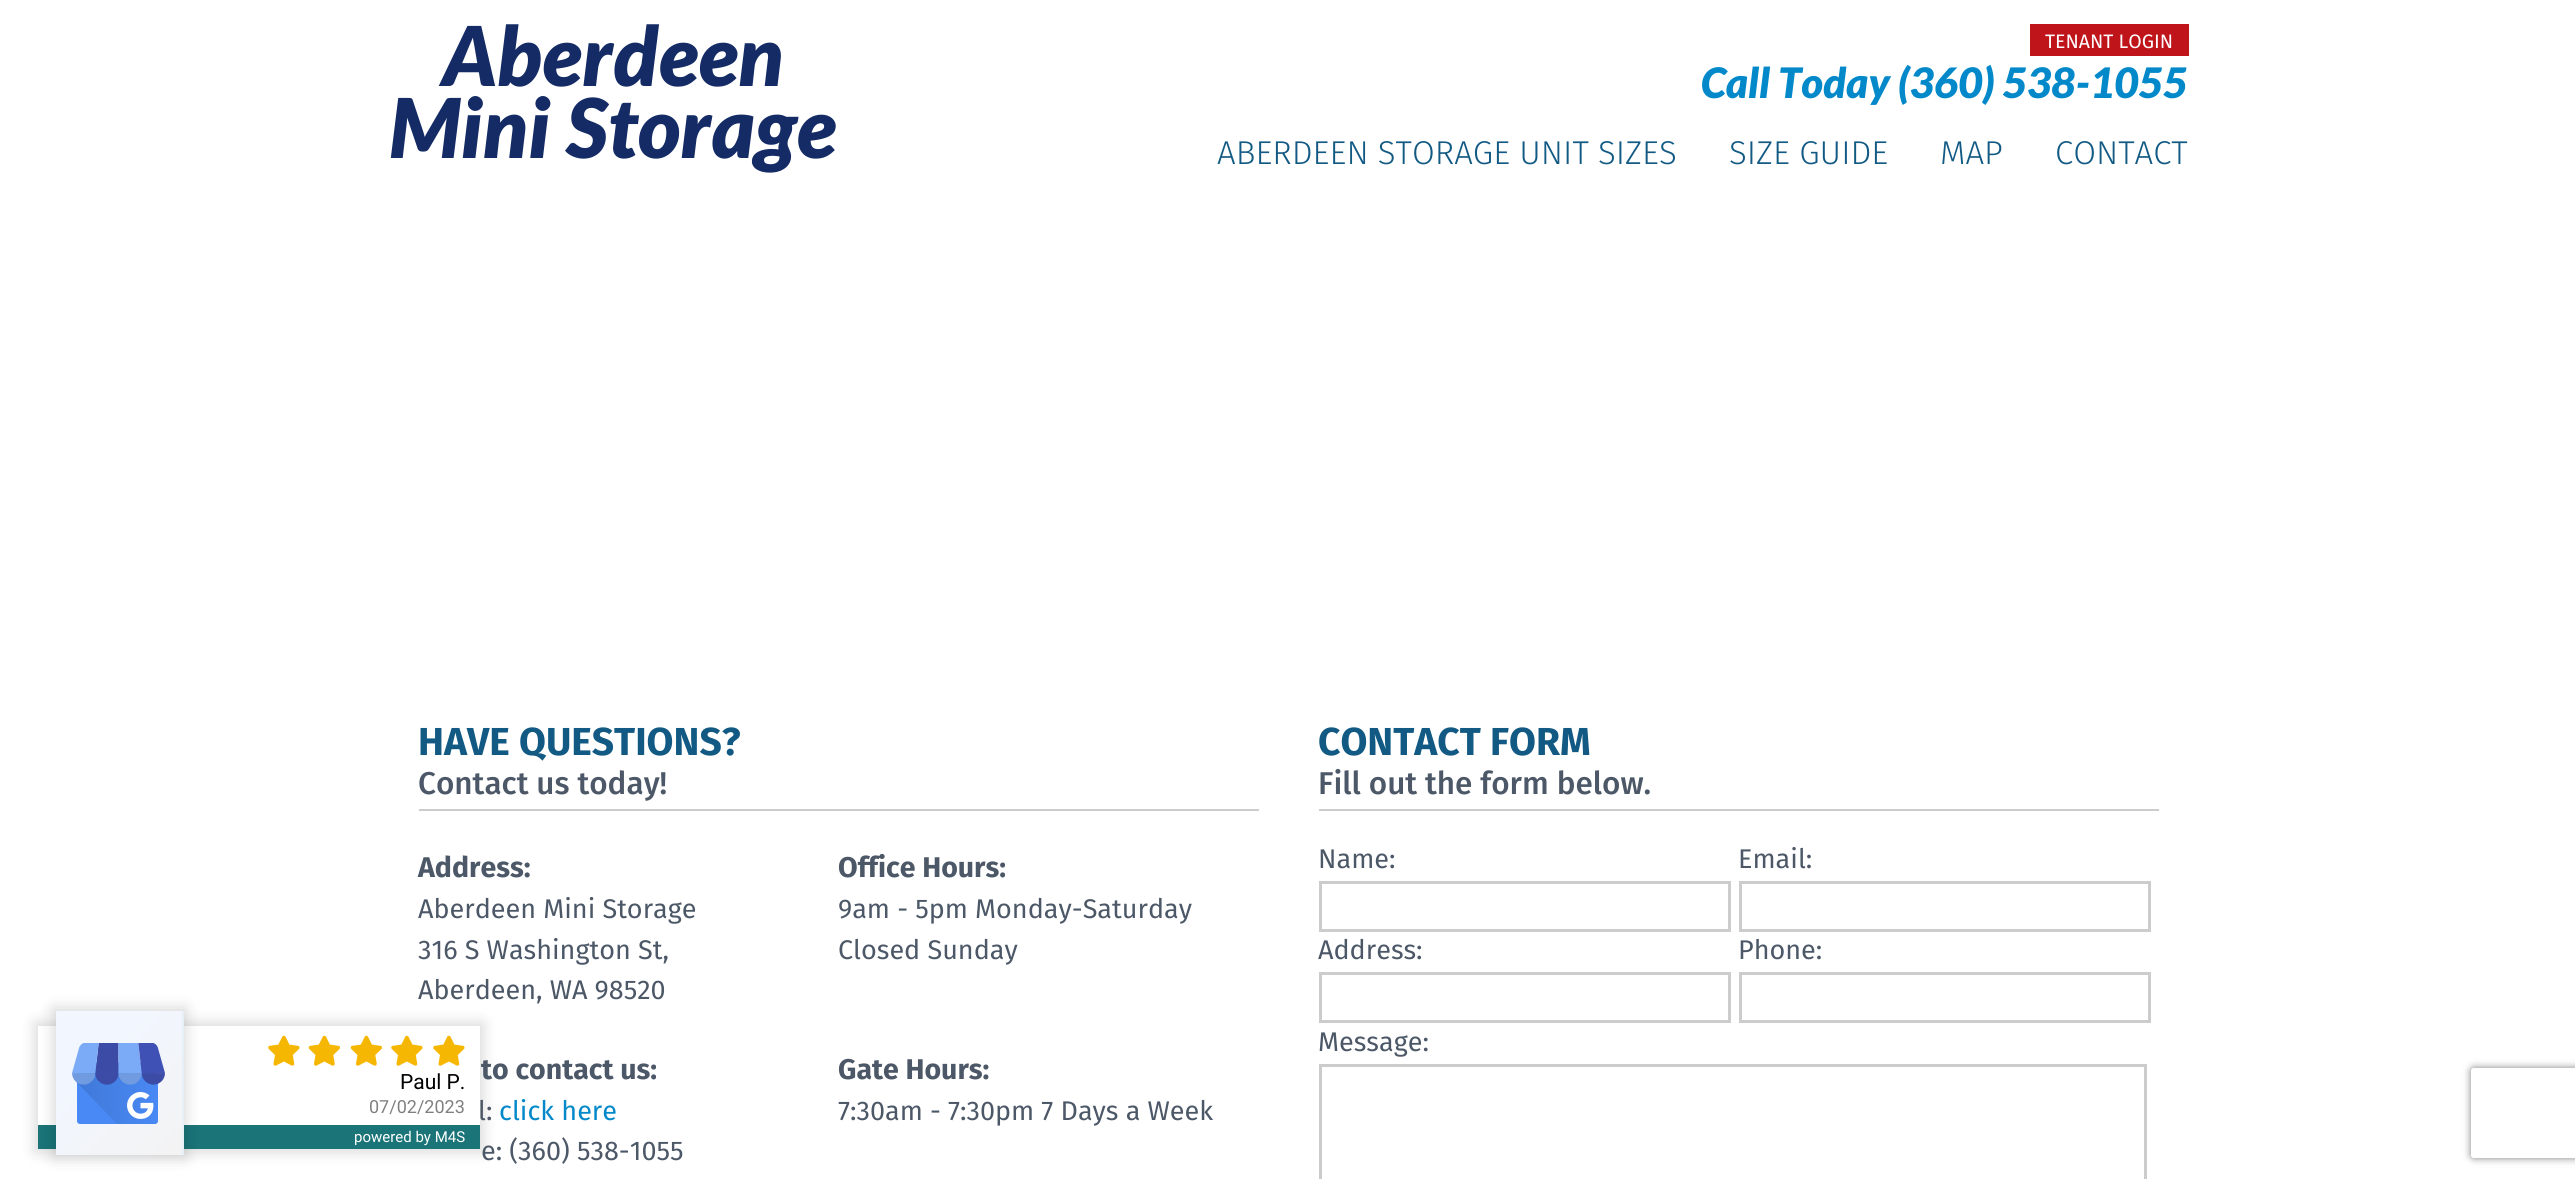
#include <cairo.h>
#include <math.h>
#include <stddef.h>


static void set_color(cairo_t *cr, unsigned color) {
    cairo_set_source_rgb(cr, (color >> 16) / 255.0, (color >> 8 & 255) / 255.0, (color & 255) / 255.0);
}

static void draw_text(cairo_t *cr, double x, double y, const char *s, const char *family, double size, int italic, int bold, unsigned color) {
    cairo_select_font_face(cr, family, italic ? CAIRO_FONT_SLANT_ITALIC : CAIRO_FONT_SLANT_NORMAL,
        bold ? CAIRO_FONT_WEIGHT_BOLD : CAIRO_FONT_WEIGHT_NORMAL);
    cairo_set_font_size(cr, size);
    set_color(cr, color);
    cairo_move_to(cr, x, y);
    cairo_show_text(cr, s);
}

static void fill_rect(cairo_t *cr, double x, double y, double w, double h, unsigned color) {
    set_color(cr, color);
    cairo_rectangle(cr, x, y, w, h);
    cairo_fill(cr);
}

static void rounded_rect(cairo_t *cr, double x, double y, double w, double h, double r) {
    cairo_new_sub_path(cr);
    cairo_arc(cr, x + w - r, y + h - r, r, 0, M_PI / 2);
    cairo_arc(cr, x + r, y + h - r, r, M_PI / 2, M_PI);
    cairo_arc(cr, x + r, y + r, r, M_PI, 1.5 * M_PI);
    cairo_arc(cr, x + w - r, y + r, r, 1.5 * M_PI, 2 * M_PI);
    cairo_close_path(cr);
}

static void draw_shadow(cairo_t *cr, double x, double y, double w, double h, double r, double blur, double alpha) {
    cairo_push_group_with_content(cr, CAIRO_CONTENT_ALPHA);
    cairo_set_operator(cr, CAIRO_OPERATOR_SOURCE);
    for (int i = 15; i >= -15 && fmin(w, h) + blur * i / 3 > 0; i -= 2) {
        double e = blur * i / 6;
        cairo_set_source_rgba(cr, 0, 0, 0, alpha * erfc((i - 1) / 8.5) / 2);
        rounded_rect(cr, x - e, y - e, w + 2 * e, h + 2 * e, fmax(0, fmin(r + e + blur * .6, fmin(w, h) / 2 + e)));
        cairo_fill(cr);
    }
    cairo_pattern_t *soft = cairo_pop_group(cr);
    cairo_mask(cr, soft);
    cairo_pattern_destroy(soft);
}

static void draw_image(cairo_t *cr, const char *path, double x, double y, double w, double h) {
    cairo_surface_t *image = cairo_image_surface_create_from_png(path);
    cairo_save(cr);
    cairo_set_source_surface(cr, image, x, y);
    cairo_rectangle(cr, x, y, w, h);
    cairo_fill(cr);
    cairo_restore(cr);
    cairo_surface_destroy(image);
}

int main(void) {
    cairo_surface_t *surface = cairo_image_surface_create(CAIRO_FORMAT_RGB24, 2575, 1179);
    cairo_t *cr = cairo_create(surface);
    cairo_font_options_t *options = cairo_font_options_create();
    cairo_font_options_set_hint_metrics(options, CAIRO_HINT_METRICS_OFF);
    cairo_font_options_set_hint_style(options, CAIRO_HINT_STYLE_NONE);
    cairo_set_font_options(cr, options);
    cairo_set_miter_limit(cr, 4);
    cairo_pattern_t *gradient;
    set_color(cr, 0xFFFFFF);
    cairo_paint(cr);
    draw_text(cr, 442, 86, "Aberdeen", "Lato Black", 82.5, 1, 0, 0x142B65);
    draw_text(cr, 389, 158, "Mini Storage", "Lato Black", 82.5, 1, 0, 0x142B65);
    fill_rect(cr, 2030, 24, 159, 32, 0xBF141A);
    draw_text(cr, 2045, 48, "TENANT LOGIN", "Fira Sans", 19.5, 0, 0, 0xFFFFFF);
    draw_text(cr, 1701, 98, "Call Today (360) 538-1055", "Lato Black", 42, 1, 0, 0x0389CA);
    draw_text(cr, 1217, 164, "ABERDEEN STORAGE UNIT SIZES", "Fira Sans Light", 33, 0, 0, 0x125A83);
    draw_text(cr, 1729, 164, "SIZE GUIDE", "Fira Sans Light", 33, 0, 0, 0x125A83);
    draw_text(cr, 1940, 164, "MAP", "Fira Sans Light", 33, 0, 0, 0x125A83);
    draw_text(cr, 2055, 164, "CONTACT", "Fira Sans Light", 33, 0, 0, 0x125A83);
    set_color(cr, 0x000000);
    draw_shadow(cr, 35, 1023, 448, 129, 0, 7.5, 0.15);
    fill_rect(cr, 38, 1026, 442, 99, 0xFFFFFF);
    fill_rect(cr, 38, 1125, 442, 24, 0x1A7478);
    set_color(cr, 0x000000);
    draw_shadow(cr, 53, 1008, 133, 150, 0, 7.5, 0.15);
    gradient = cairo_pattern_create_linear(186, 1151, 51, 1016);
    cairo_pattern_add_color_stop_rgba(gradient, 0, 0.953, 0.953, 0.953, 1);
    cairo_pattern_add_color_stop_rgba(gradient, 0.74, 0.949, 0.965, 1, 1);
    cairo_set_source(cr, gradient);
    cairo_pattern_destroy(gradient);
    cairo_rectangle(cr, 56, 1011, 126, 144);
    cairo_fill(cr);
    fill_rect(cr, 182, 1011, 2, 144, 0xE7EFF7);
    draw_image(cr, "assets/img1.png", 72, 1043, 93, 81);
    draw_image(cr, "assets/img2.png", 268, 1035, 32, 31);
    draw_image(cr, "assets/img3.png", 308, 1035, 32, 31);
    draw_image(cr, "assets/img3.png", 350, 1035, 32, 31);
    draw_image(cr, "assets/img2.png", 391, 1035, 32, 31);
    draw_image(cr, "assets/img2.png", 433, 1035, 32, 31);
    draw_text(cr, 400, 1089, "Paul P.", "Roboto", 21, 0, 0, 0x000000);
    draw_text(cr, 369, 1113, "07/02/2023", "Roboto", 18, 0, 0, 0x808080);
    draw_text(cr, 354, 1142, "powered by M4S", "Roboto", 15, 0, 0, 0xFFFFFF);
    draw_text(cr, 418, 755, "HAVE QUESTIONS?", "Fira Sans", 39, 0, 1, 0x125A83);
    draw_text(cr, 418, 794, "Contact us today!", "Fira Sans Medium", 31.5, 0, 0, 0x4C5867);
    fill_rect(cr, 419, 809, 840, 2, 0xCCCCCC);
    draw_text(cr, 418, 877, "Address:", "Fira Sans", 28.5, 0, 1, 0x4C5867);
    draw_text(cr, 418, 918, "Aberdeen Mini Storage", "Fira Sans", 27, 0, 0, 0x4C5867);
    draw_text(cr, 418, 959, "316 S Washington St,", "Fira Sans", 27, 0, 0, 0x4C5867);
    draw_text(cr, 418, 999, "Aberdeen, WA 98520", "Fira Sans", 27, 0, 0, 0x4C5867);
    draw_text(cr, 838, 877, "Office Hours:", "Fira Sans", 28.5, 0, 1, 0x4C5867);
    draw_text(cr, 838, 918, "9am - 5pm Monday-Saturday", "Fira Sans", 27, 0, 0, 0x4C5867);
    draw_text(cr, 838, 959, "Closed Sunday", "Fira Sans", 27, 0, 0, 0x4C5867);
    draw_text(cr, 481, 1079, "to contact us:", "Fira Sans", 28.5, 0, 1, 0x4C5867);
    draw_text(cr, 478, 1120, "l:", "Fira Sans", 27, 0, 0, 0x4C5867);
    draw_text(cr, 499, 1120, "click here", "Fira Sans", 27, 0, 0, 0x0389CA);
    draw_text(cr, 481, 1160, "e: (360) 538-1055", "Fira Sans", 27, 0, 0, 0x4C5867);
    draw_text(cr, 838, 1079, "Gate Hours:", "Fira Sans", 28.5, 0, 1, 0x4C5867);
    draw_text(cr, 838, 1120, "7:30am - 7:30pm 7 Days a Week", "Fira Sans", 27, 0, 0, 0x4C5867);
    draw_text(cr, 1318, 755, "CONTACT FORM", "Fira Sans", 39, 0, 1, 0x125A83);
    draw_text(cr, 1318, 794, "Fill out the form below.", "Fira Sans Medium", 31.5, 0, 0, 0x4C5867);
    fill_rect(cr, 1319, 809, 840, 2, 0xCCCCCC);
    draw_text(cr, 1318, 868, "Name:", "Fira Sans", 27, 0, 0, 0x4C5867);
    cairo_rectangle(cr, 1320.5, 882.5, 409, 48);
    set_color(cr, 0xCCCCCC);
    cairo_set_line_width(cr, 3);
    cairo_stroke(cr);
    draw_text(cr, 1738, 868, "Email:", "Fira Sans", 27, 0, 0, 0x4C5867);
    cairo_rectangle(cr, 1740.5, 882.5, 409, 48);
    set_color(cr, 0xCCCCCC);
    cairo_stroke(cr);
    draw_text(cr, 1318, 959, "Address:", "Fira Sans", 27, 0, 0, 0x4C5867);
    cairo_rectangle(cr, 1320.5, 973.5, 409, 48);
    set_color(cr, 0xCCCCCC);
    cairo_stroke(cr);
    draw_text(cr, 1738, 959, "Phone:", "Fira Sans", 27, 0, 0, 0x4C5867);
    cairo_rectangle(cr, 1740.5, 973.5, 409, 48);
    set_color(cr, 0xCCCCCC);
    cairo_stroke(cr);
    draw_text(cr, 1318, 1051, "Message:", "Fira Sans", 27, 0, 0, 0x4C5867);
    cairo_rectangle(cr, 1320.5, 1065.5, 825, 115);
    set_color(cr, 0xCCCCCC);
    cairo_stroke(cr);
    cairo_save(cr);
    cairo_set_fill_rule(cr, CAIRO_FILL_RULE_EVEN_ODD);
    cairo_new_path(cr);
    cairo_move_to(cr, 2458, 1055);
    cairo_line_to(cr, 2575, 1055);
    cairo_line_to(cr, 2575, 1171);
    cairo_line_to(cr, 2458, 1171);
    cairo_close_path(cr);
    cairo_move_to(cr, 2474, 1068);
    cairo_line_to(cr, 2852, 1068);
    cairo_curve_to(cr, 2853.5, 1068, 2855, 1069.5, 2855, 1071);
    cairo_line_to(cr, 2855, 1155);
    cairo_curve_to(cr, 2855, 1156.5, 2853.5, 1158, 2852, 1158);
    cairo_line_to(cr, 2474, 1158);
    cairo_curve_to(cr, 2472.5, 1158, 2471, 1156.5, 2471, 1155);
    cairo_line_to(cr, 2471, 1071);
    cairo_curve_to(cr, 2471, 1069.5, 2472.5, 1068, 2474, 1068);
    cairo_close_path(cr);
    cairo_clip(cr);
    set_color(cr, 0x808080);
    draw_shadow(cr, 2471, 1068, 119, 90, 3, 4, 1);
    cairo_restore(cr);
    cairo_surface_write_to_png(surface, "output.png");
    cairo_font_options_destroy(options);
    cairo_destroy(cr);
    cairo_surface_destroy(surface);
    return 0;
}
